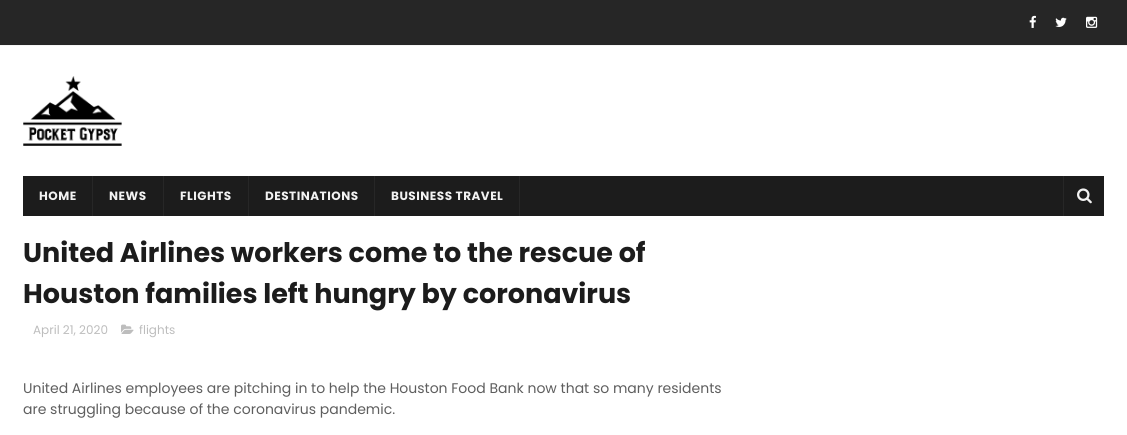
#include <cairo.h>
#include <math.h>
#include <stddef.h>


static void set_color(cairo_t *cr, unsigned color) {
    cairo_set_source_rgb(cr, (color >> 16) / 255.0, (color >> 8 & 255) / 255.0, (color & 255) / 255.0);
}

static void draw_text(cairo_t *cr, double x, double y, const char *s, const char *family, double size, int italic, int bold, unsigned color) {
    cairo_select_font_face(cr, family, italic ? CAIRO_FONT_SLANT_ITALIC : CAIRO_FONT_SLANT_NORMAL,
        bold ? CAIRO_FONT_WEIGHT_BOLD : CAIRO_FONT_WEIGHT_NORMAL);
    cairo_set_font_size(cr, size);
    set_color(cr, color);
    cairo_move_to(cr, x, y);
    cairo_show_text(cr, s);
}

static void draw_spaced(cairo_t *cr, double x, double y, const char *s, double letter, double word) {
    cairo_move_to(cr, x, y);
    while (*s) {
        char ch[5] = {0};
        int n = 0;
        do ch[n++] = *s++; while ((*s & 0xC0) == 0x80);
        cairo_show_text(cr, ch);
        cairo_rel_move_to(cr, letter + word * (*ch == ' '), 0);
    }
}

static void fill_rect(cairo_t *cr, double x, double y, double w, double h, unsigned color) {
    set_color(cr, color);
    cairo_rectangle(cr, x, y, w, h);
    cairo_fill(cr);
}

static void draw_image(cairo_t *cr, const char *path, double x, double y, double w, double h) {
    cairo_surface_t *image = cairo_image_surface_create_from_png(path);
    cairo_save(cr);
    cairo_set_source_surface(cr, image, x, y);
    cairo_rectangle(cr, x, y, w, h);
    cairo_fill(cr);
    cairo_restore(cr);
    cairo_surface_destroy(image);
}

int main(void) {
    cairo_surface_t *surface = cairo_image_surface_create(CAIRO_FORMAT_RGB24, 1127, 435);
    cairo_t *cr = cairo_create(surface);
    cairo_font_options_t *options = cairo_font_options_create();
    cairo_font_options_set_hint_metrics(options, CAIRO_HINT_METRICS_OFF);
    cairo_font_options_set_hint_style(options, CAIRO_HINT_STYLE_NONE);
    cairo_set_font_options(cr, options);
    cairo_set_miter_limit(cr, 4);
    set_color(cr, 0xFFFFFF);
    cairo_paint(cr);
    fill_rect(cr, 0, 0, 1127, 45, 0x262626);
    fill_rect(cr, 0, 45, 1127, 1, 0xF5F5F5);
    draw_image(cr, "assets/img1.png", 1029, 15, 7, 13);
    draw_image(cr, "assets/img2.png", 1055, 17, 12, 10);
    draw_image(cr, "assets/img3.png", 1086, 16, 12, 12);
    draw_image(cr, "assets/img4.png", 23, 76, 99, 70);
    fill_rect(cr, 23, 176, 1081, 40, 0x1C1C1C);
    fill_rect(cr, 92, 176, 1, 40, 0x272727);
    cairo_select_font_face(cr, "Poppins", CAIRO_FONT_SLANT_NORMAL, CAIRO_FONT_WEIGHT_BOLD);
    cairo_set_font_size(cr, 12);
    set_color(cr, 0xF2F2F2);
    draw_spaced(cr, 39, 200, "HOME", 0.5, 0);
    fill_rect(cr, 163, 176, 1, 40, 0x272727);
    set_color(cr, 0xF2F2F2);
    draw_spaced(cr, 109, 200, "NEWS", 0.5, 0);
    fill_rect(cr, 248, 176, 1, 40, 0x272727);
    set_color(cr, 0xF2F2F2);
    draw_spaced(cr, 180, 200, "FLIGHTS", 0.5, 0);
    fill_rect(cr, 374, 176, 1, 40, 0x272727);
    set_color(cr, 0xF2F2F2);
    draw_spaced(cr, 265, 200, "DESTINATIONS", 0.5, 0);
    fill_rect(cr, 519, 176, 1, 40, 0x272727);
    set_color(cr, 0xF2F2F2);
    draw_spaced(cr, 391, 200, "BUSINESS TRAVEL", 0.5, 0);
    fill_rect(cr, 1063, 176, 1, 40, 0x272727);
    draw_image(cr, "assets/img5.png", 1077, 188, 15, 16);
    draw_text(cr, 23, 262, "United Airlines workers come to the rescue of", "Poppins", 27, 0, 1, 0x1C1C1C);
    draw_text(cr, 23, 303, "Houston families left hungry by coronavirus", "Poppins", 27, 0, 1, 0x1C1C1C);
    draw_text(cr, 33, 334, "April 21, 2020", "Poppins", 12, 0, 0, 0xBDBDBD);
    draw_image(cr, "assets/img6.png", 121, 324, 13, 10);
    draw_text(cr, 139, 334, "flights", "Poppins", 12, 0, 0, 0xBDBDBD);
    draw_text(cr, 23, 393, "United Airlines employees are pitching in to help the Houston Food Bank now that so many residents", "Poppins", 14, 0, 0, 0x5E5E5E);
    draw_text(cr, 23, 414, "are struggling because of the coronavirus pandemic.", "Poppins", 14, 0, 0, 0x5E5E5E);
    cairo_surface_write_to_png(surface, "output.png");
    cairo_font_options_destroy(options);
    cairo_destroy(cr);
    cairo_surface_destroy(surface);
    return 0;
}
